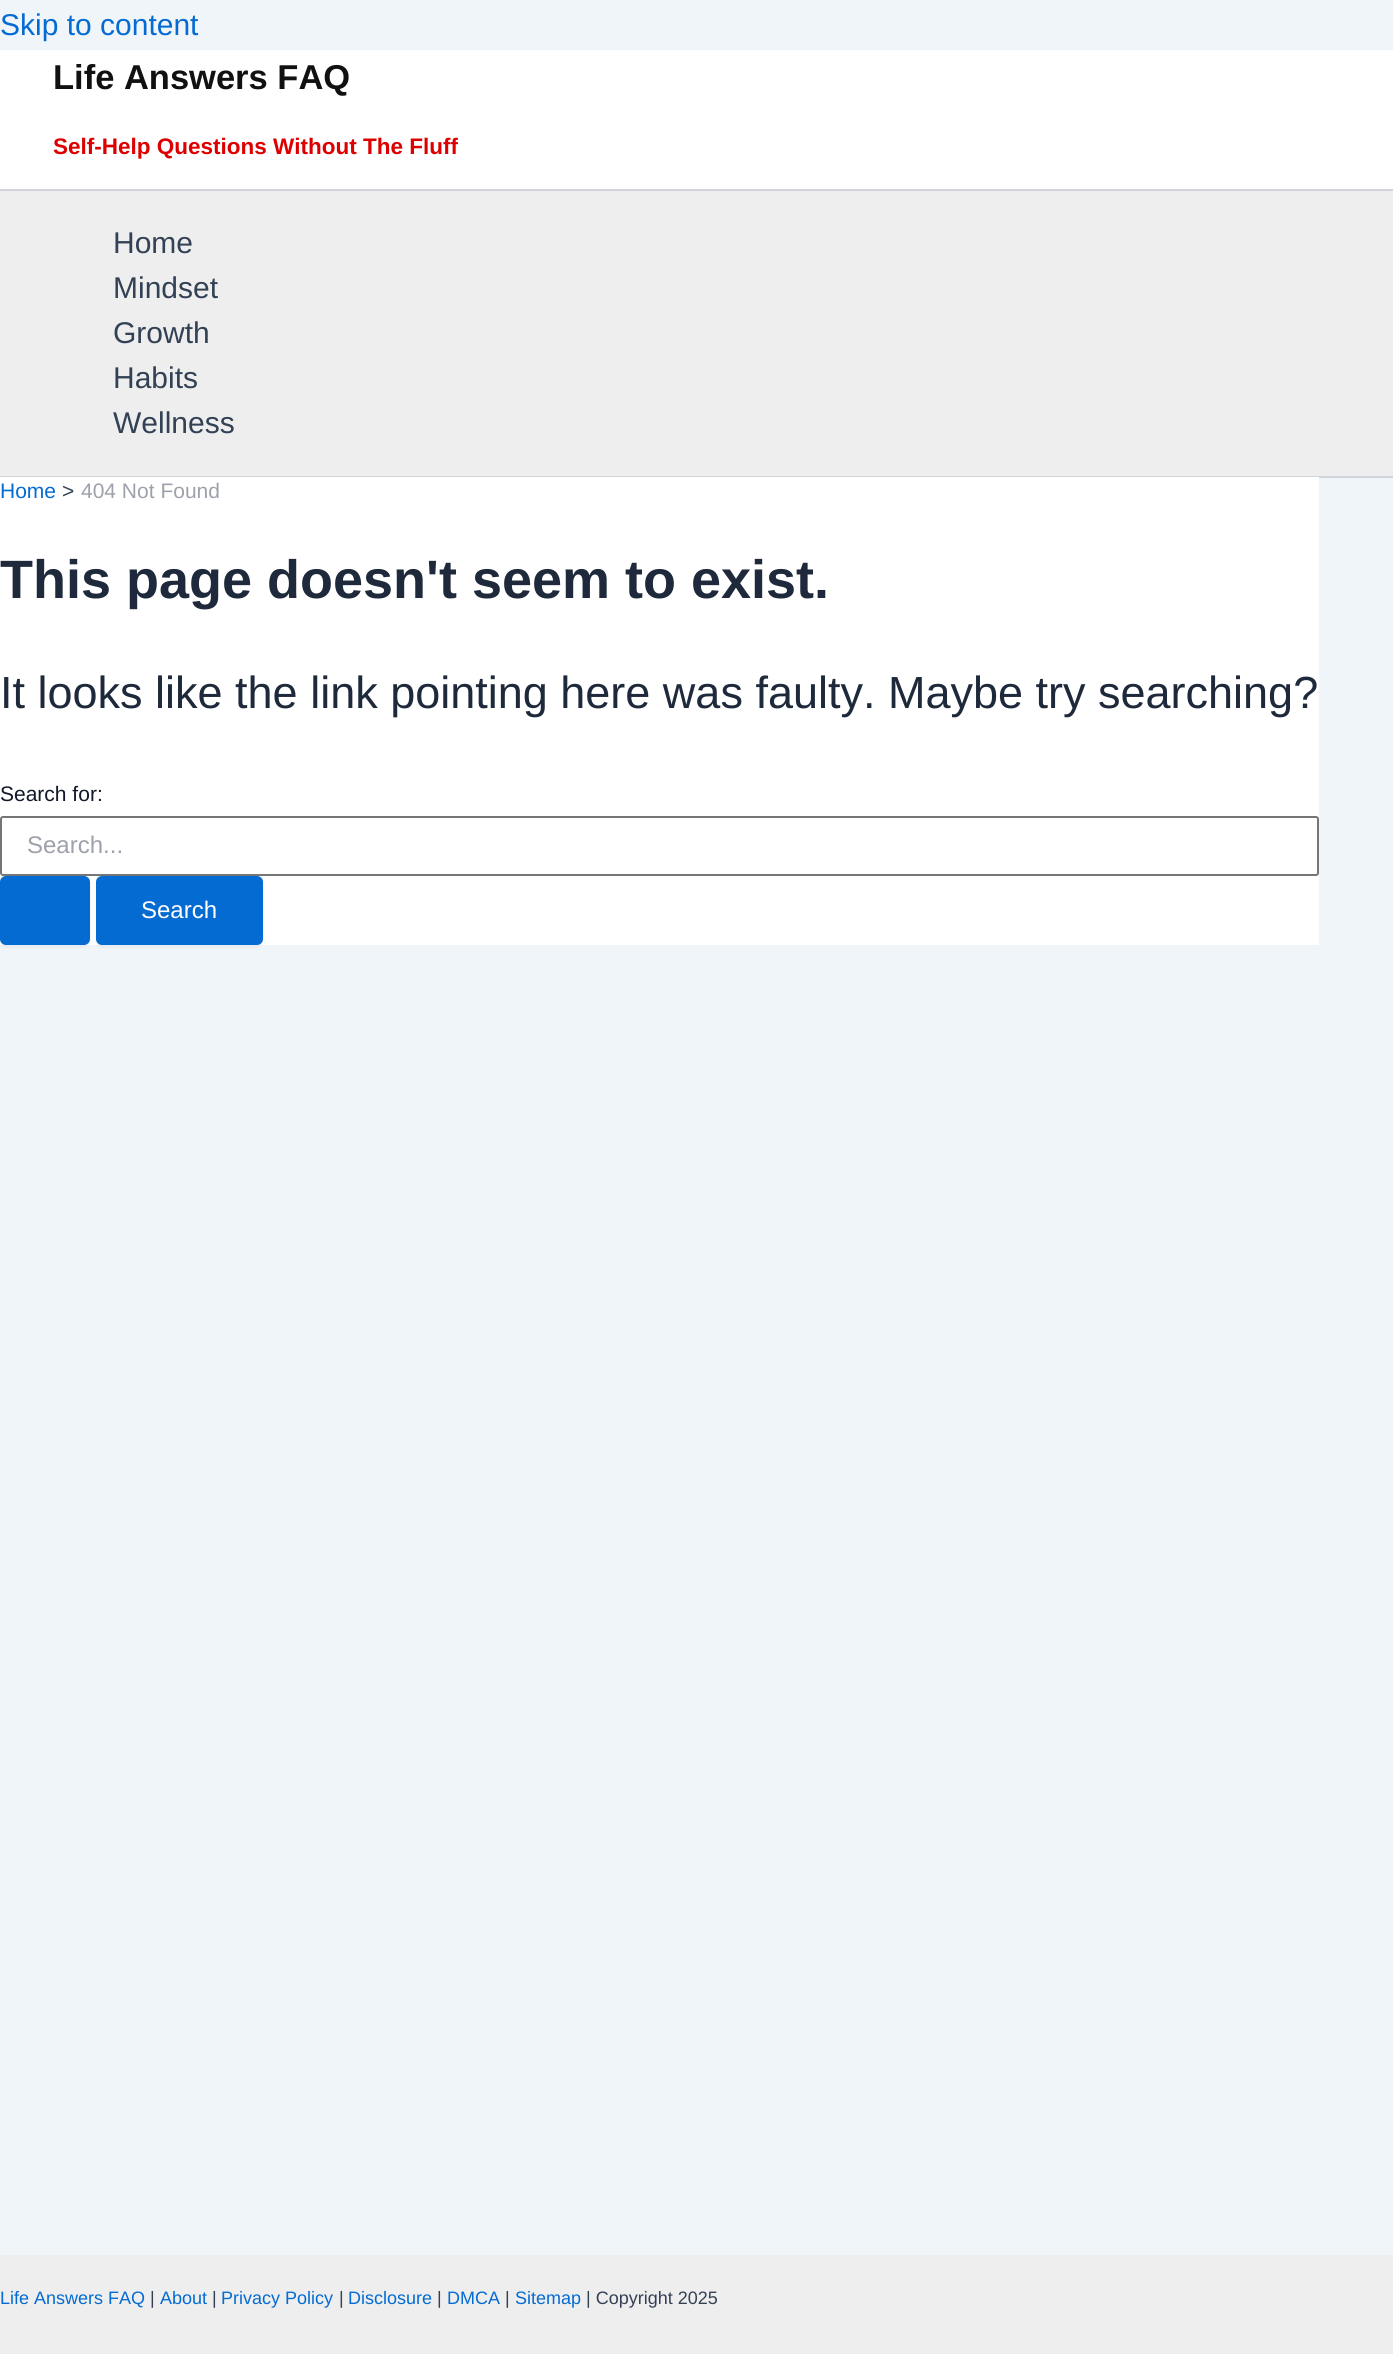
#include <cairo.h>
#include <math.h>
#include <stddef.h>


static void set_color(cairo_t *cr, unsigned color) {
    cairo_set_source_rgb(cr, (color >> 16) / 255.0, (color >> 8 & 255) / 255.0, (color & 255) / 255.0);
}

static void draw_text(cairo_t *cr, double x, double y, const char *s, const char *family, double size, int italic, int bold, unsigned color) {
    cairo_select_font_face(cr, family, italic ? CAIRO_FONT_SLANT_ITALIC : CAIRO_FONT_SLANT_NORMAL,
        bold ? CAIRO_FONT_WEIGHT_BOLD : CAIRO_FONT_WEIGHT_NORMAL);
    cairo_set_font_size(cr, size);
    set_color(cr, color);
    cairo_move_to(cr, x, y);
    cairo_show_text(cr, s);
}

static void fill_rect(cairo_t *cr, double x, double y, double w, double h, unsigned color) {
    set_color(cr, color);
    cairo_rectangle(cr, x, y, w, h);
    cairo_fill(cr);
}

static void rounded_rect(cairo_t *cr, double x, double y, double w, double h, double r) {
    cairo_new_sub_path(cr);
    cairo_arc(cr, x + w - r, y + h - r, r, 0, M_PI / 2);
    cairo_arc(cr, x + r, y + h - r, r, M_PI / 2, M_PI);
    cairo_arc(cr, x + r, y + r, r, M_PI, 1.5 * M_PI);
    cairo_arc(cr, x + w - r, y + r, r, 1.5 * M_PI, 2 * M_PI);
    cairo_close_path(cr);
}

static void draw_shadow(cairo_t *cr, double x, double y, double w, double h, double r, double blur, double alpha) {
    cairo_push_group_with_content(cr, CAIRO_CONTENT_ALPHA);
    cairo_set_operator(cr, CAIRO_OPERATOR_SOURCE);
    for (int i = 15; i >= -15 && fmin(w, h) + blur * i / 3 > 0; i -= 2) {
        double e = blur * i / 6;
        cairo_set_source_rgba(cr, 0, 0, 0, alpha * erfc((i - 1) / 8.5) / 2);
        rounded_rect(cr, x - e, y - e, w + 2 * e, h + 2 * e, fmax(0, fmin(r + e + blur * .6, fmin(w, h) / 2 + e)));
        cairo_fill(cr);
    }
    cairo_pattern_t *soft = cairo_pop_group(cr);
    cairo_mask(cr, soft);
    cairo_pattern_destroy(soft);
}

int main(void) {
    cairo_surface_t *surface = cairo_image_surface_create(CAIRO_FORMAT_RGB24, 1393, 2354);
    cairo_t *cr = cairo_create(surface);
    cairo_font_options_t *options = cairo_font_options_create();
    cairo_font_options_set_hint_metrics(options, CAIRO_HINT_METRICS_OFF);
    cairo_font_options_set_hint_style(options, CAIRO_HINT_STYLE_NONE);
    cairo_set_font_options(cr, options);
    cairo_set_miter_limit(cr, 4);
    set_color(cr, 0xF0F5FA);
    cairo_paint(cr);
    draw_text(cr, 0, 35, "Skip to content", "Liberation Sans", 30, 0, 0, 0x046BD2);
    fill_rect(cr, 0, 50, 1393, 139, 0xFFFFFF);
    fill_rect(cr, 0, 189, 1393, 2, 0xD1D5DB);
    draw_text(cr, 53, 89, "Life Answers FAQ", "Liberation Sans", 34.5, 0, 1, 0x111111);
    draw_text(cr, 53, 154, "Self-Help Questions Without The Fluff", "Liberation Sans", 22.5, 0, 1, 0xDE0000);
    fill_rect(cr, 0, 191, 1393, 285, 0xEEEEEE);
    fill_rect(cr, 0, 476, 1393, 2, 0xD1D5DB);
    draw_text(cr, 113, 253, "Home", "Liberation Sans", 30, 0, 0, 0x334155);
    draw_text(cr, 113, 298, "Mindset", "Liberation Sans", 30, 0, 0, 0x334155);
    draw_text(cr, 113, 343, "Growth", "Liberation Sans", 30, 0, 0, 0x334155);
    draw_text(cr, 113, 388, "Habits", "Liberation Sans", 30, 0, 0, 0x334155);
    draw_text(cr, 113, 433, "Wellness", "Liberation Sans", 30, 0, 0, 0x334155);
    fill_rect(cr, 0, 477, 1319, 468, 0xFFFFFF);
    draw_text(cr, 0, 498, "Home", "Liberation Sans", 21, 0, 0, 0x046BD2);
    draw_text(cr, 62, 498, ">", "Liberation Sans", 21, 0, 0, 0x334155);
    draw_text(cr, 81, 498, "404 Not Found", "Liberation Sans", 21, 0, 0, 0x9EA1AB);
    draw_text(cr, 0, 598, "This page doesn't seem to exist.", "Liberation Sans", 54, 0, 1, 0x1E293B);
    draw_text(cr, 0, 708, "It looks like the link pointing here was faulty. Maybe try searching?", "Liberation Sans", 45, 0, 0, 0x1E293B);
    draw_text(cr, 0, 801, "Search for:", "Liberation Sans", 21, 0, 0, 0x111827);
    rounded_rect(cr, 1, 817, 1317, 58, 2);
    set_color(cr, 0x767676);
    cairo_stroke(cr);
    draw_text(cr, 27, 853, "Search...", "Liberation Sans", 24, 0, 0, 0x9EA1AB);
    set_color(cr, 0x000000);
    draw_shadow(cr, 0, 878, 90, 69, 6, 1.5, 0.05);
    set_color(cr, 0x046BD2);
    rounded_rect(cr, 0, 876, 90, 69, 6);
    cairo_fill(cr);
    set_color(cr, 0x000000);
    draw_shadow(cr, 96, 878, 167, 69, 6, 1.5, 0.05);
    set_color(cr, 0x046BD2);
    rounded_rect(cr, 96, 876, 167, 69, 6);
    cairo_fill(cr);
    draw_text(cr, 141, 918, "Search", "Liberation Sans", 24, 0, 0, 0xFFFFFF);
    fill_rect(cr, 0, 2255, 1393, 99, 0xEEEEEE);
    draw_text(cr, 0, 2304, "Life Answers FAQ", "Liberation Sans", 18, 0, 0, 0x046BD2);
    draw_text(cr, 150, 2304, "|", "Liberation Sans", 18, 0, 0, 0x334155);
    draw_text(cr, 160, 2304, "About", "Liberation Sans", 18, 0, 0, 0x046BD2);
    draw_text(cr, 212, 2304, "|", "Liberation Sans", 18, 0, 0, 0x334155);
    draw_text(cr, 221, 2304, "Privacy Policy", "Liberation Sans", 18, 0, 0, 0x046BD2);
    draw_text(cr, 339, 2304, "|", "Liberation Sans", 18, 0, 0, 0x334155);
    draw_text(cr, 348, 2304, "Disclosure", "Liberation Sans", 18, 0, 0, 0x046BD2);
    draw_text(cr, 437, 2304, "|", "Liberation Sans", 18, 0, 0, 0x334155);
    draw_text(cr, 447, 2304, "DMCA", "Liberation Sans", 18, 0, 0, 0x046BD2);
    draw_text(cr, 505, 2304, "|", "Liberation Sans", 18, 0, 0, 0x334155);
    draw_text(cr, 515, 2304, "Sitemap", "Liberation Sans", 18, 0, 0, 0x046BD2);
    draw_text(cr, 586, 2304, "| Copyright 2025", "Liberation Sans", 18, 0, 0, 0x334155);
    cairo_surface_write_to_png(surface, "output.png");
    cairo_font_options_destroy(options);
    cairo_destroy(cr);
    cairo_surface_destroy(surface);
    return 0;
}
